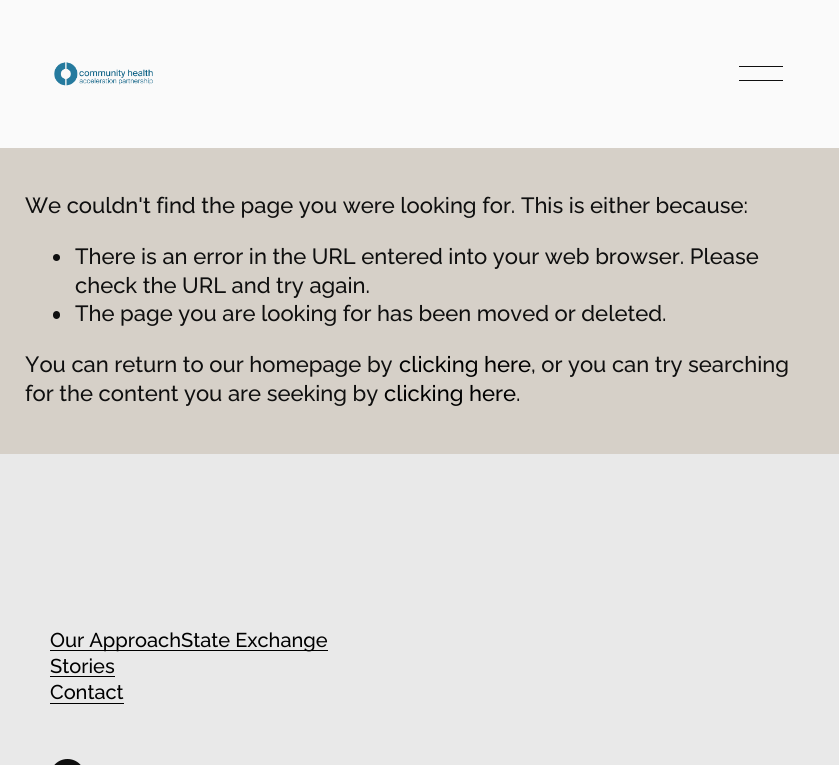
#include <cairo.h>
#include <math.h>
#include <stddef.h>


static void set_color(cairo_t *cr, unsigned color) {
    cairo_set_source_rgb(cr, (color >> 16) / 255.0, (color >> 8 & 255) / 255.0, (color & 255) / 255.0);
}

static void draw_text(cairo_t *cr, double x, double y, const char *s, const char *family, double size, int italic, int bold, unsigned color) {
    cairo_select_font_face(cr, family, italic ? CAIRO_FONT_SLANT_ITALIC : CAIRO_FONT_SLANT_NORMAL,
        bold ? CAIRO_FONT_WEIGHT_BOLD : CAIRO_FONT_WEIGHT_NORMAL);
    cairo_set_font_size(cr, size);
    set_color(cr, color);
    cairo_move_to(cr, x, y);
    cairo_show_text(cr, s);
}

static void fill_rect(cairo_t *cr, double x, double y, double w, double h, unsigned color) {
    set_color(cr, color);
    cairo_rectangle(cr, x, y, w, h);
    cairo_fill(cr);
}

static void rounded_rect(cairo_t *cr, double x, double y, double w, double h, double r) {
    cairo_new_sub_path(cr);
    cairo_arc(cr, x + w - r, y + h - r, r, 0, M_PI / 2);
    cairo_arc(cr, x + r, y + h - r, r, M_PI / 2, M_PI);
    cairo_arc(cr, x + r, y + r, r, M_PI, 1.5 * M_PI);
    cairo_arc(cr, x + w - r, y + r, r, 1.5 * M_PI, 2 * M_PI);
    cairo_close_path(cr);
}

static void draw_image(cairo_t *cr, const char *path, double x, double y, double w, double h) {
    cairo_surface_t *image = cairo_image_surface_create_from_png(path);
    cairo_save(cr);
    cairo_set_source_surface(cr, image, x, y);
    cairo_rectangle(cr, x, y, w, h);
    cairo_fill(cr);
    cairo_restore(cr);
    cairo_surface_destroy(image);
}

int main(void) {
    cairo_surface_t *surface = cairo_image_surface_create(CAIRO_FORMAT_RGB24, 839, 765);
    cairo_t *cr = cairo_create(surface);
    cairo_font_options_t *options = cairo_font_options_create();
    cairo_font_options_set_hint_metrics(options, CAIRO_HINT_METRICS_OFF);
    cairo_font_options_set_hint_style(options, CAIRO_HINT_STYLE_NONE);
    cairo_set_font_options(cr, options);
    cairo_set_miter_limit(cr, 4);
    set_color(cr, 0xD6D0C8);
    cairo_paint(cr);
    fill_rect(cr, 0, 0, 839, 148, 0xFAFAFA);
    draw_image(cr, "assets/img1.png", 54, 62, 99, 24);
    fill_rect(cr, 739, 66, 44, 1, 0x0F0F0F);
    fill_rect(cr, 739, 80, 44, 1, 0x0F0F0F);
    draw_text(cr, 25, 213, "We couldn't find the page you were looking for. This is either because:", "Raleway Medium", 22, 0, 0, 0x0F0F0F);
    cairo_new_path(cr);
    cairo_arc(cr, 56.5, 257.5, 3.5, 0, 2 * M_PI);
    cairo_fill(cr);
    draw_text(cr, 75, 264, "There is an error in the URL entered into your web browser. Please", "Raleway Medium", 22, 0, 0, 0x0F0F0F);
    draw_text(cr, 75, 293, "check the URL and try again.", "Raleway Medium", 22, 0, 0, 0x0F0F0F);
    rounded_rect(cr, 53, 311, 7, 8, 3.5);
    cairo_fill(cr);
    draw_text(cr, 75, 321, "The page you are looking for has been moved or deleted.", "Raleway Medium", 22, 0, 0, 0x0F0F0F);
    draw_text(cr, 25, 372, "You can return to our homepage by", "Raleway Medium", 22, 0, 0, 0x0F0F0F);
    draw_text(cr, 399, 372, "clicking here", "Raleway Medium", 22, 0, 0, 0x000000);
    draw_text(cr, 531, 372, ", or you can try searching", "Raleway Medium", 22, 0, 0, 0x0F0F0F);
    draw_text(cr, 25, 401, "for the content you are seeking by", "Raleway Medium", 22, 0, 0, 0x0F0F0F);
    draw_text(cr, 384, 401, "clicking here", "Raleway Medium", 22, 0, 0, 0x000000);
    draw_text(cr, 516, 401, ".", "Raleway Medium", 22, 0, 0, 0x0F0F0F);
    fill_rect(cr, 0, 454, 839, 311, 0xE9E9E9);
    fill_rect(cr, 50, 650, 278, 1, 0x000000);
    draw_text(cr, 50, 647, "Our ApproachState Exchange", "Raleway Medium", 20, 0, 0, 0x000000);
    draw_text(cr, 50, 673, "Stories", "Raleway Medium", 20, 0, 0, 0x000000);
    fill_rect(cr, 50, 676, 65, 1, 0x000000);
    draw_text(cr, 50, 699, "Contact", "Raleway Medium", 20, 0, 0, 0x000000);
    fill_rect(cr, 50, 703, 74, 1, 0x000000);
    draw_image(cr, "assets/img2.png", 54, 759, 27, 6);
    cairo_surface_write_to_png(surface, "output.png");
    cairo_font_options_destroy(options);
    cairo_destroy(cr);
    cairo_surface_destroy(surface);
    return 0;
}
